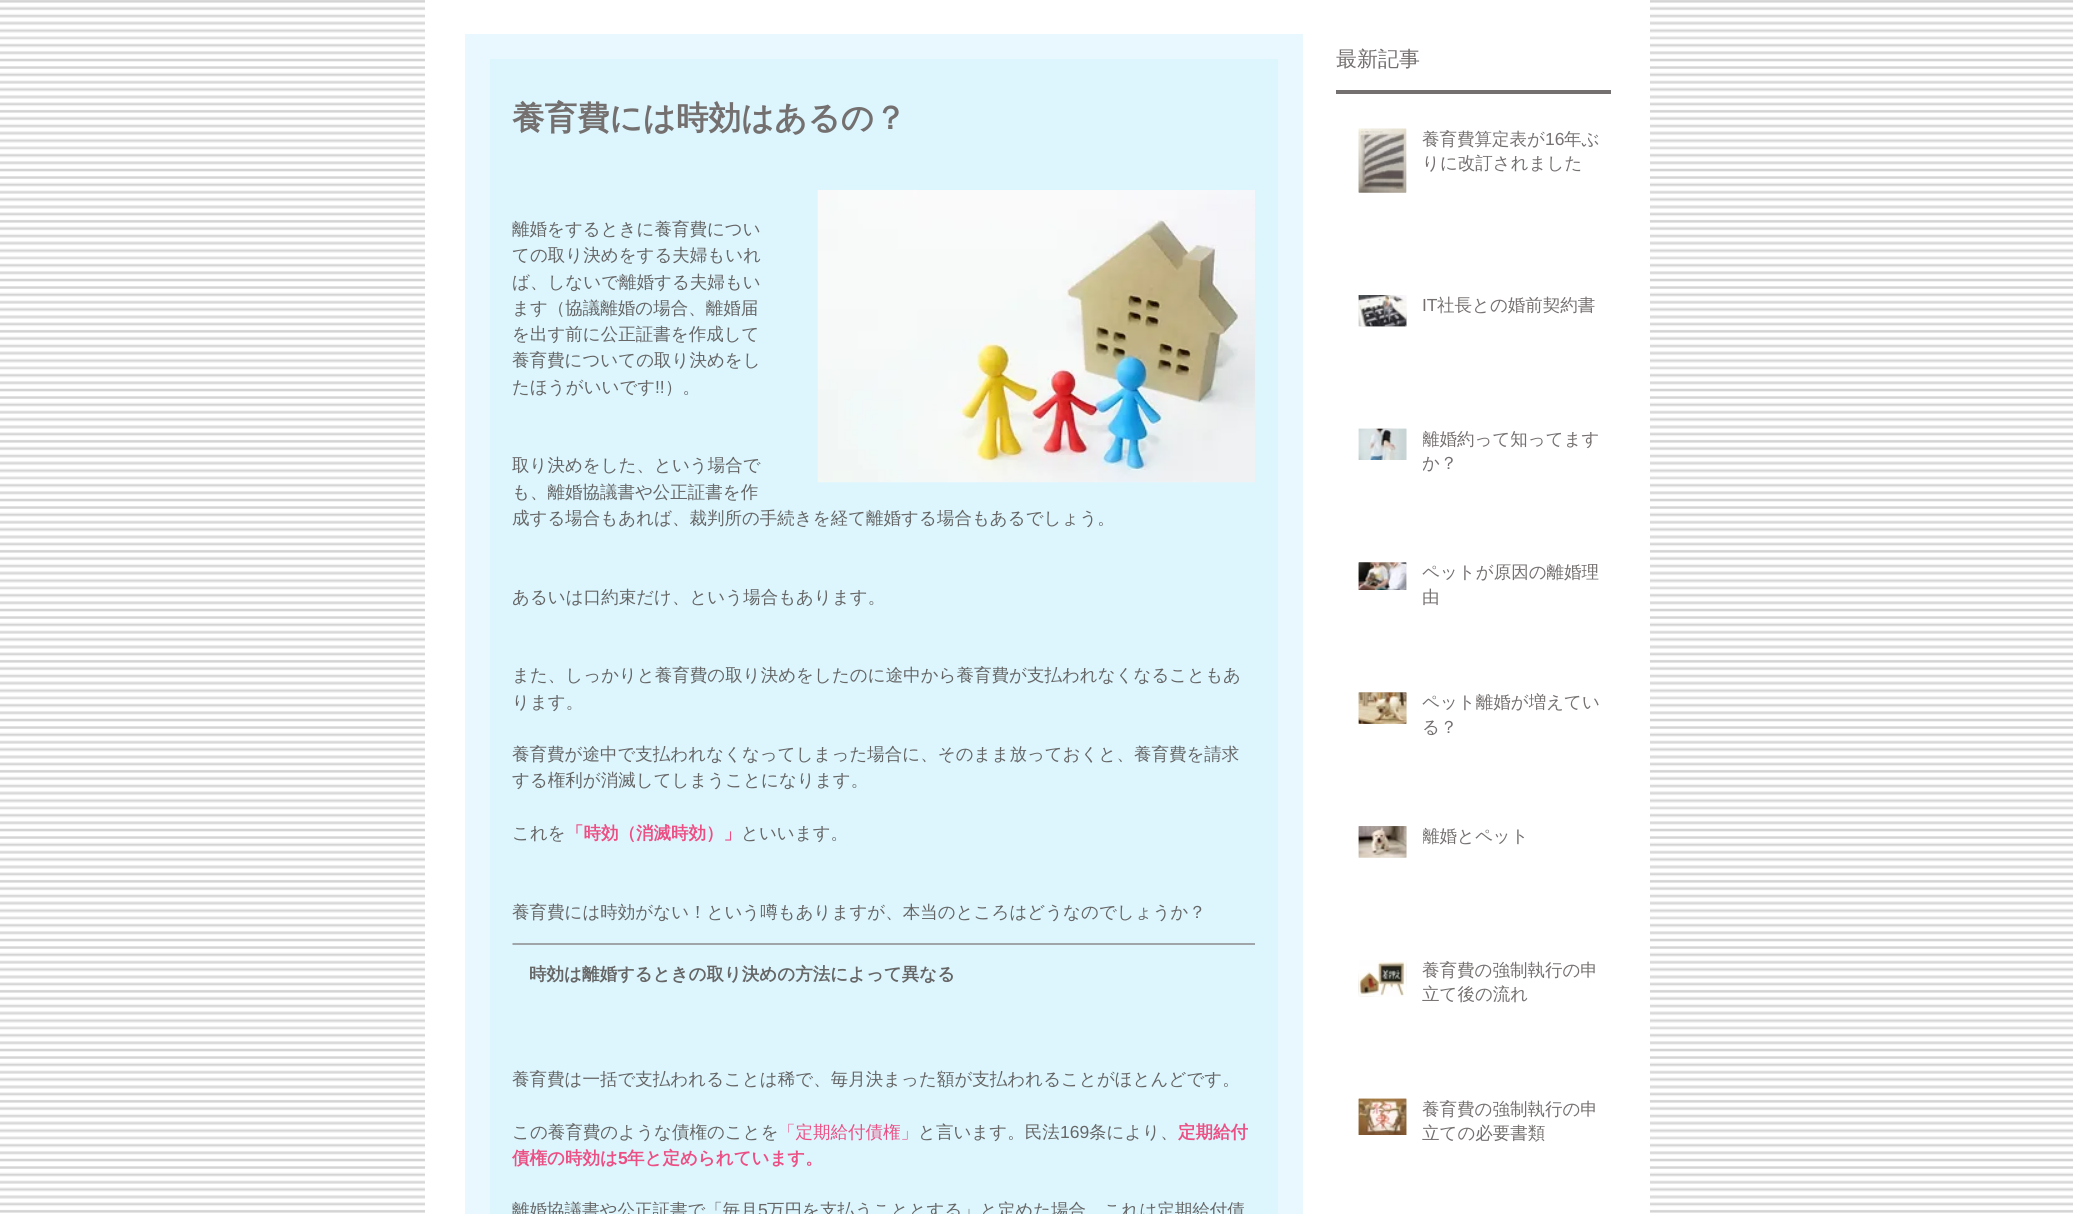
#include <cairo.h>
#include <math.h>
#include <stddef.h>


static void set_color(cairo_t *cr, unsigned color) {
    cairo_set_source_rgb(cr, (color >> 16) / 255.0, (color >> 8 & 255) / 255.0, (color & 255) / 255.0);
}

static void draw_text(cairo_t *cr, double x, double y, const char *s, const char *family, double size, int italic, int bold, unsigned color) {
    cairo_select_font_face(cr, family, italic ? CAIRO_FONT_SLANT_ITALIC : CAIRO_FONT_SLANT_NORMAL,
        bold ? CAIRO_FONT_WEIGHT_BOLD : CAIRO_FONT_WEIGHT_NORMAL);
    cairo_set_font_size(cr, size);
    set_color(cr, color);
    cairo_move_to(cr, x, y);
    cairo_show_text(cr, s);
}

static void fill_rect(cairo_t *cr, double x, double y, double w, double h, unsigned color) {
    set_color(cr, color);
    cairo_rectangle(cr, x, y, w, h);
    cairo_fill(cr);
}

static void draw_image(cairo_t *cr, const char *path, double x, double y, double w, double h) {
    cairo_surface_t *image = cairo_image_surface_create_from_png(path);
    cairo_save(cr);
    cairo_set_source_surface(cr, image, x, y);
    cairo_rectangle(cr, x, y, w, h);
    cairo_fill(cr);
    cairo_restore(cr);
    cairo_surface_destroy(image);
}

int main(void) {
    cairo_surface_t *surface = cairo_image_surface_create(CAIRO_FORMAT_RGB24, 2073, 1214);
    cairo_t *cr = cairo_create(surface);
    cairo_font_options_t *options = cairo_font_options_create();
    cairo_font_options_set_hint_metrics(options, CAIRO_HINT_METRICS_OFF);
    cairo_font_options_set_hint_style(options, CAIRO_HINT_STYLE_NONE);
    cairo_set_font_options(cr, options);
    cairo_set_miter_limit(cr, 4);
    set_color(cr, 0xFFFFFF);
    cairo_paint(cr);
    draw_image(cr, "assets/img1.png", 0, 0, 2073, 1213);
    fill_rect(cr, 425, 0, 1225, 1213, 0xFFFFFF);
    draw_text(cr, 1336, 66, "最新記事", "WenQuanYi Zen Hei Medium", 21, 0, 0, 0x757070);
    fill_rect(cr, 1336, 90, 275, 4, 0x757070);
    fill_rect(cr, 465, 34, 838, 1180, 0xE8F8FE);
    fill_rect(cr, 490, 59, 788, 1155, 0xDDF6FE);
    draw_text(cr, 512, 129, "養育費には時効はあるの？", "WenQuanYi Zen Hei", 32.5, 0, 1, 0x757070);
    draw_text(cr, 512, 235, "離婚をするときに養育費につい", "WenQuanYi Zen Hei Medium", 17.5, 0, 0, 0x666666);
    draw_text(cr, 512, 261, "ての取り決めをする夫婦もいれ", "WenQuanYi Zen Hei Medium", 17.5, 0, 0, 0x666666);
    draw_text(cr, 512, 288, "ば、しないで離婚する夫婦もい", "WenQuanYi Zen Hei Medium", 17.5, 0, 0, 0x666666);
    draw_text(cr, 512, 314, "ます（協議離婚の場合、離婚届", "WenQuanYi Zen Hei Medium", 17.5, 0, 0, 0x666666);
    draw_text(cr, 512, 340, "を出す前に公正証書を作成して", "WenQuanYi Zen Hei Medium", 17.5, 0, 0, 0x666666);
    draw_text(cr, 512, 366, "養育費についての取り決めをし", "WenQuanYi Zen Hei Medium", 17.5, 0, 0, 0x666666);
    draw_text(cr, 512, 393, "たほうがいいです", "WenQuanYi Zen Hei Medium", 17.5, 0, 0, 0x666666);
    draw_text(cr, 655, 393, "!!", "Liberation Sans", 17.5, 0, 0, 0x666666);
    draw_text(cr, 665, 393, "）。", "WenQuanYi Zen Hei Medium", 17.5, 0, 0, 0x666666);
    draw_image(cr, "assets/img2.png", 817, 190, 438, 293);
    draw_text(cr, 512, 471, "取り決めをした、という場合で", "WenQuanYi Zen Hei Medium", 17.5, 0, 0, 0x666666);
    draw_text(cr, 512, 498, "も、離婚協議書や公正証書を作", "WenQuanYi Zen Hei Medium", 17.5, 0, 0, 0x666666);
    draw_text(cr, 512, 524, "成する場合もあれば、裁判所の手続きを経て離婚する場合もあるでしょう。", "WenQuanYi Zen Hei Medium", 17.5, 0, 0, 0x666666);
    draw_text(cr, 512, 603, "あるいは口約束だけ、という場合もあります。", "WenQuanYi Zen Hei Medium", 17.5, 0, 0, 0x666666);
    draw_text(cr, 512, 681, "また、しっかりと養育費の取り決めをしたのに途中から養育費が支払われなくなることもあ", "WenQuanYi Zen Hei Medium", 17.5, 0, 0, 0x666666);
    draw_text(cr, 512, 708, "ります。", "WenQuanYi Zen Hei Medium", 17.5, 0, 0, 0x666666);
    draw_text(cr, 512, 760, "養育費が途中で支払われなくなってしまった場合に、そのまま放っておくと、養育費を請求", "WenQuanYi Zen Hei Medium", 17.5, 0, 0, 0x666666);
    draw_text(cr, 512, 786, "する権利が消滅してしまうことになります。", "WenQuanYi Zen Hei Medium", 17.5, 0, 0, 0x666666);
    draw_text(cr, 512, 839, "これを", "WenQuanYi Zen Hei Medium", 17.5, 0, 0, 0x666666);
    draw_text(cr, 566, 839, "「時効（消滅時効）」", "WenQuanYi Zen Hei", 17.5, 0, 1, 0xEC4F84);
    draw_text(cr, 741, 839, "といいます。", "WenQuanYi Zen Hei Medium", 17.5, 0, 0, 0x666666);
    draw_text(cr, 512, 918, "養育費には時効がない！という噂もありますが、本当のところはどうなのでしょうか？", "WenQuanYi Zen Hei Medium", 17.5, 0, 0, 0x666666);
    cairo_new_path(cr);
    cairo_move_to(cr, 512.5, 944);
    cairo_line_to(cr, 1255, 944);
    set_color(cr, 0x757070);
    cairo_set_line_width(cr, 1.2);
    cairo_stroke(cr);
    draw_text(cr, 529, 980, "時効は離婚するときの取り決めの方法によって異なる", "WenQuanYi Zen Hei", 17.5, 0, 1, 0x666666);
    draw_text(cr, 512, 1085, "養育費は一括で支払われることは稀で、毎月決まった額が支払われることがほとんどです。", "WenQuanYi Zen Hei Medium", 17.5, 0, 0, 0x666666);
    draw_text(cr, 512, 1138, "この養育費のような債権のことを", "WenQuanYi Zen Hei Medium", 17.5, 0, 0, 0x666666);
    draw_text(cr, 778, 1138, "「定期給付債権」", "WenQuanYi Zen Hei Medium", 17.5, 0, 0, 0xEC4F84);
    draw_text(cr, 918, 1138, "と言います。民法", "WenQuanYi Zen Hei Medium", 17.5, 0, 0, 0x666666);
    draw_text(cr, 1060, 1138, "169", "Liberation Sans", 17.5, 0, 0, 0x666666);
    draw_text(cr, 1089, 1138, "条により、", "WenQuanYi Zen Hei Medium", 17.5, 0, 0, 0x666666);
    draw_text(cr, 1178, 1138, "定期給付", "WenQuanYi Zen Hei", 17.5, 0, 1, 0xEC4F84);
    draw_text(cr, 512, 1164, "債権の時効は", "WenQuanYi Zen Hei", 17.5, 0, 1, 0xEC4F84);
    draw_text(cr, 618, 1164, "5", "Liberation Sans", 17.5, 0, 1, 0xEC4F84);
    draw_text(cr, 627, 1164, "年と定められています。", "WenQuanYi Zen Hei", 17.5, 0, 1, 0xEC4F84);
    draw_text(cr, 512, 1216, "離婚協議書や公正証書で「毎月", "WenQuanYi Zen Hei Medium", 17.5, 0, 0, 0x666666);
    draw_text(cr, 758, 1216, "5", "Liberation Sans", 17.5, 0, 0, 0x666666);
    draw_text(cr, 767, 1216, "万円を支払うこととする」と定めた場合、これは定期給付債", "WenQuanYi Zen Hei Medium", 17.5, 0, 0, 0x666666);
    draw_image(cr, "assets/img3.png", 1358, 128, 49, 65);
    draw_image(cr, "assets/img4.png", 1358, 128, 49, 65);
    draw_text(cr, 1422, 145, "養育費算定表が", "WenQuanYi Zen Hei Medium", 17.5, 0, 0, 0x757070);
    draw_text(cr, 1545, 145, "16", "Liberation Sans", 17.5, 0, 0, 0x757070);
    draw_text(cr, 1564, 145, "年ぶ", "WenQuanYi Zen Hei Medium", 17.5, 0, 0, 0x757070);
    draw_text(cr, 1422, 169, "りに改訂されました", "WenQuanYi Zen Hei Medium", 17.5, 0, 0, 0x757070);
    draw_image(cr, "assets/img5.png", 1358, 295, 49, 32);
    draw_image(cr, "assets/img6.png", 1358, 295, 49, 32);
    draw_text(cr, 1422, 311, "IT", "Liberation Sans", 17.5, 0, 0, 0x757070);
    draw_text(cr, 1437, 311, "社長との婚前契約書", "WenQuanYi Zen Hei Medium", 17.5, 0, 0, 0x757070);
    draw_image(cr, "assets/img7.png", 1358, 428, 49, 32);
    draw_image(cr, "assets/img8.png", 1358, 428, 49, 32);
    cairo_save(cr);
    cairo_rectangle(cr, 1423, 428, 180, 48);
    cairo_clip(cr);
    draw_text(cr, 1422, 445, "離婚約って知ってます", "WenQuanYi Zen Hei Medium", 17.5, 0, 0, 0x757070);
    draw_text(cr, 1422, 469, "か？", "WenQuanYi Zen Hei Medium", 17.5, 0, 0, 0x757070);
    cairo_restore(cr);
    draw_image(cr, "assets/img9.png", 1358, 562, 49, 28);
    draw_image(cr, "assets/img10.png", 1358, 562, 49, 28);
    draw_text(cr, 1422, 578, "ペットが原因の離婚理", "WenQuanYi Zen Hei Medium", 17.5, 0, 0, 0x757070);
    draw_text(cr, 1422, 603, "由", "WenQuanYi Zen Hei Medium", 17.5, 0, 0, 0x757070);
    draw_image(cr, "assets/img11.png", 1358, 692, 49, 32);
    draw_image(cr, "assets/img12.png", 1358, 692, 49, 32);
    draw_text(cr, 1422, 708, "ペット離婚が増えてい", "WenQuanYi Zen Hei Medium", 17.5, 0, 0, 0x757070);
    draw_text(cr, 1422, 733, "る？", "WenQuanYi Zen Hei Medium", 17.5, 0, 0, 0x757070);
    draw_image(cr, "assets/img13.png", 1358, 826, 49, 32);
    draw_image(cr, "assets/img14.png", 1358, 826, 49, 32);
    cairo_save(cr);
    cairo_rectangle(cr, 1423, 825, 180, 24);
    cairo_clip(cr);
    draw_text(cr, 1422, 842, "離婚とペット", "WenQuanYi Zen Hei Medium", 17.5, 0, 0, 0x757070);
    cairo_restore(cr);
    draw_image(cr, "assets/img15.png", 1358, 960, 49, 37);
    draw_image(cr, "assets/img16.png", 1359, 960, 47, 36);
    draw_text(cr, 1422, 976, "養育費の強制執行の申", "WenQuanYi Zen Hei Medium", 17.5, 0, 0, 0x757070);
    draw_text(cr, 1422, 1000, "立て後の流れ", "WenQuanYi Zen Hei Medium", 17.5, 0, 0, 0x757070);
    draw_image(cr, "assets/img17.png", 1358, 1098, 49, 37);
    draw_image(cr, "assets/img18.png", 1358, 1098, 49, 37);
    draw_text(cr, 1422, 1115, "養育費の強制執行の申", "WenQuanYi Zen Hei Medium", 17.5, 0, 0, 0x757070);
    draw_text(cr, 1422, 1139, "立ての必要書類", "WenQuanYi Zen Hei Medium", 17.5, 0, 0, 0x757070);
    cairo_surface_write_to_png(surface, "output.png");
    cairo_font_options_destroy(options);
    cairo_destroy(cr);
    cairo_surface_destroy(surface);
    return 0;
}
